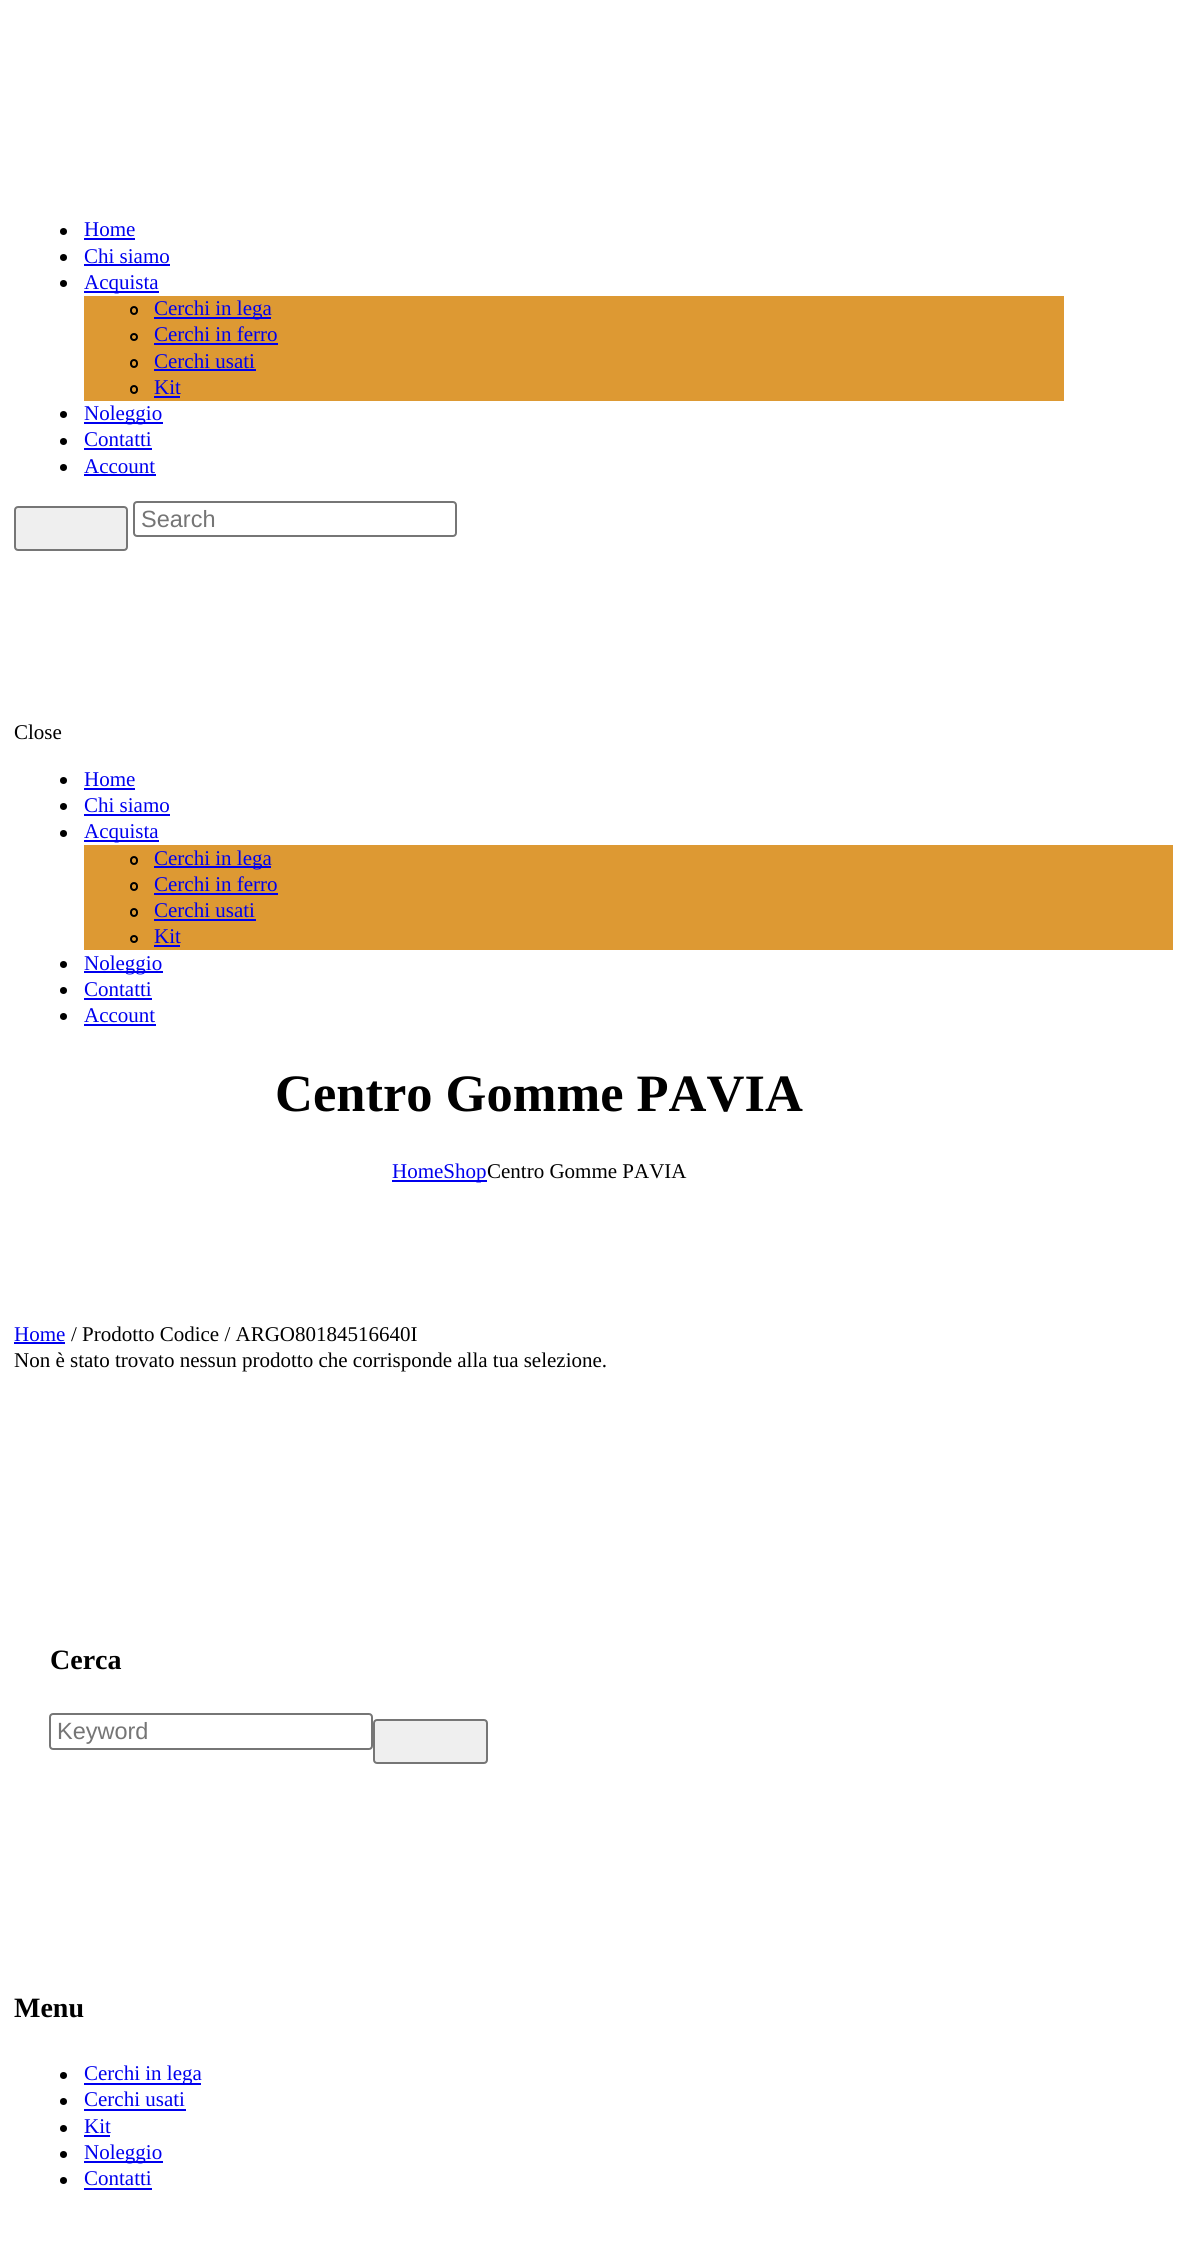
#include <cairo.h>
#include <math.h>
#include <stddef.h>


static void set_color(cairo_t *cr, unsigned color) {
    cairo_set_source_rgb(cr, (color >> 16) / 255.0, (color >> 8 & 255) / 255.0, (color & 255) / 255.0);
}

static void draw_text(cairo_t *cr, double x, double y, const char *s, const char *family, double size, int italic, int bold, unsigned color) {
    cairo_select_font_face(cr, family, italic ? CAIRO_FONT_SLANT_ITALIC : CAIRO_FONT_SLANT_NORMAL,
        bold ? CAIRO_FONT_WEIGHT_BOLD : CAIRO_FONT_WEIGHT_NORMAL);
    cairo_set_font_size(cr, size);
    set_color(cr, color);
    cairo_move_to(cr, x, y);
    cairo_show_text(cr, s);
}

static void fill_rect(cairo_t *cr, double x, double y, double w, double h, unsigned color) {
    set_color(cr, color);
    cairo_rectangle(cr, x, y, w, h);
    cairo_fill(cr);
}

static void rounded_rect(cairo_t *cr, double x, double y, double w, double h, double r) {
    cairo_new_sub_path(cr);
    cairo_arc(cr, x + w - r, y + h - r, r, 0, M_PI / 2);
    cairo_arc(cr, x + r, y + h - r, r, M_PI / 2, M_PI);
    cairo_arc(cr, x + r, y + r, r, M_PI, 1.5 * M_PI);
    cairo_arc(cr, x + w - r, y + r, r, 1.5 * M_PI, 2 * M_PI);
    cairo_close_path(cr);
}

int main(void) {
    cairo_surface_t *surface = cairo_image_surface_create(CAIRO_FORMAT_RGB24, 1185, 2259);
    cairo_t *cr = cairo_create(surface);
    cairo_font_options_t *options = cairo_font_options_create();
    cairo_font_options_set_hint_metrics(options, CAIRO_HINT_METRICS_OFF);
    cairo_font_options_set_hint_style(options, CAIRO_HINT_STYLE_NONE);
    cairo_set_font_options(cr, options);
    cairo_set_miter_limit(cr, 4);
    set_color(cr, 0xFFFFFF);
    cairo_paint(cr);
    set_color(cr, 0x000000);
    cairo_arc(cr, 63.5, 231.5, 3.5, 0, 2 * M_PI);
    cairo_fill(cr);
    draw_text(cr, 84, 236, "Home", "Liberation Serif", 21, 0, 0, 0x0000EE);
    fill_rect(cr, 84, 238, 51, 2, 0x0000EE);
    set_color(cr, 0x000000);
    cairo_new_path(cr);
    cairo_arc(cr, 63.5, 257.5, 3.5, 0, 2 * M_PI);
    cairo_fill(cr);
    draw_text(cr, 84, 263, "Chi siamo", "Liberation Serif", 21, 0, 0, 0x0000EE);
    fill_rect(cr, 84, 264, 86, 2, 0x0000EE);
    set_color(cr, 0x000000);
    cairo_new_path(cr);
    cairo_arc(cr, 63.5, 283.5, 3.5, 0, 2 * M_PI);
    cairo_fill(cr);
    fill_rect(cr, 84, 291, 75, 2, 0x0000EE);
    draw_text(cr, 84, 289, "Acquista", "Liberation Serif", 21, 0, 0, 0x0000EE);
    fill_rect(cr, 84, 296, 980, 105, 0xDD9933);
    rounded_rect(cr, 131, 307, 6, 7, 3);
    set_color(cr, 0x000000);
    cairo_stroke(cr);
    fill_rect(cr, 154, 317, 117, 2, 0x0000EE);
    draw_text(cr, 154, 315, "Cerchi in lega", "Liberation Serif", 21, 0, 0, 0x0000EE);
    cairo_new_path(cr);
    cairo_arc(cr, 134, 337, 3, 0, 2 * M_PI);
    set_color(cr, 0x000000);
    cairo_stroke(cr);
    draw_text(cr, 154, 341, "Cerchi in ferro", "Liberation Serif", 21, 0, 0, 0x0000EE);
    fill_rect(cr, 154, 343, 124, 2, 0x0000EE);
    rounded_rect(cr, 131, 360, 6, 7, 3);
    set_color(cr, 0x000000);
    cairo_stroke(cr);
    draw_text(cr, 154, 368, "Cerchi usati", "Liberation Serif", 21, 0, 0, 0x0000EE);
    fill_rect(cr, 154, 369, 102, 2, 0x0000EE);
    rounded_rect(cr, 131, 386, 6, 7, 3);
    set_color(cr, 0x000000);
    cairo_stroke(cr);
    draw_text(cr, 154, 394, "Kit", "Liberation Serif", 21, 0, 0, 0x0000EE);
    fill_rect(cr, 154, 396, 26, 2, 0x0000EE);
    set_color(cr, 0x000000);
    cairo_new_path(cr);
    cairo_arc(cr, 63.5, 414.5, 3.5, 0, 2 * M_PI);
    cairo_fill(cr);
    fill_rect(cr, 84, 422, 79, 2, 0x0000EE);
    draw_text(cr, 84, 420, "Noleggio", "Liberation Serif", 21, 0, 0, 0x0000EE);
    set_color(cr, 0x000000);
    cairo_new_path(cr);
    cairo_arc(cr, 63.5, 441.5, 3.5, 0, 2 * M_PI);
    cairo_fill(cr);
    draw_text(cr, 84, 446, "Contatti", "Liberation Serif", 21, 0, 0, 0x0000EE);
    fill_rect(cr, 84, 448, 68, 2, 0x0000EE);
    set_color(cr, 0x000000);
    cairo_new_path(cr);
    cairo_arc(cr, 63.5, 467.5, 3.5, 0, 2 * M_PI);
    cairo_fill(cr);
    draw_text(cr, 84, 473, "Account", "Liberation Serif", 21, 0, 0, 0x0000EE);
    fill_rect(cr, 84, 474, 72, 2, 0x0000EE);
    set_color(cr, 0xEFEFEF);
    rounded_rect(cr, 15, 507, 112, 43, 3);
    cairo_fill_preserve(cr);
    set_color(cr, 0x767676);
    cairo_stroke(cr);
    rounded_rect(cr, 134, 502, 322, 34, 3);
    cairo_stroke(cr);
    draw_text(cr, 141, 527, "Search", "Liberation Sans", 23.5, 0, 0, 0x757575);
    draw_text(cr, 14, 739, "Close", "Liberation Serif", 21, 0, 0, 0x000000);
    cairo_new_path(cr);
    cairo_arc(cr, 63.5, 780.5, 3.5, 0, 2 * M_PI);
    cairo_fill(cr);
    draw_text(cr, 84, 786, "Home", "Liberation Serif", 21, 0, 0, 0x0000EE);
    fill_rect(cr, 84, 788, 51, 2, 0x0000EE);
    set_color(cr, 0x000000);
    cairo_new_path(cr);
    cairo_arc(cr, 63.5, 806.5, 3.5, 0, 2 * M_PI);
    cairo_fill(cr);
    draw_text(cr, 84, 812, "Chi siamo", "Liberation Serif", 21, 0, 0, 0x0000EE);
    fill_rect(cr, 84, 814, 86, 2, 0x0000EE);
    set_color(cr, 0x000000);
    cairo_new_path(cr);
    cairo_arc(cr, 63.5, 833.5, 3.5, 0, 2 * M_PI);
    cairo_fill(cr);
    fill_rect(cr, 84, 840, 75, 2, 0x0000EE);
    draw_text(cr, 84, 838, "Acquista", "Liberation Serif", 21, 0, 0, 0x0000EE);
    fill_rect(cr, 84, 845, 1089, 105, 0xDD9933);
    rounded_rect(cr, 131, 857, 6, 7, 3);
    set_color(cr, 0x000000);
    cairo_stroke(cr);
    fill_rect(cr, 154, 866, 117, 2, 0x0000EE);
    draw_text(cr, 154, 865, "Cerchi in lega", "Liberation Serif", 21, 0, 0, 0x0000EE);
    rounded_rect(cr, 131, 883, 6, 7, 3);
    set_color(cr, 0x000000);
    cairo_stroke(cr);
    draw_text(cr, 154, 891, "Cerchi in ferro", "Liberation Serif", 21, 0, 0, 0x0000EE);
    fill_rect(cr, 154, 893, 124, 2, 0x0000EE);
    rounded_rect(cr, 131, 909, 6, 7, 3);
    set_color(cr, 0x000000);
    cairo_stroke(cr);
    draw_text(cr, 154, 917, "Cerchi usati", "Liberation Serif", 21, 0, 0, 0x0000EE);
    fill_rect(cr, 154, 919, 102, 2, 0x0000EE);
    cairo_new_path(cr);
    cairo_arc(cr, 134, 939, 3, 0, 2 * M_PI);
    set_color(cr, 0x000000);
    cairo_stroke(cr);
    draw_text(cr, 154, 943, "Kit", "Liberation Serif", 21, 0, 0, 0x0000EE);
    fill_rect(cr, 154, 945, 26, 2, 0x0000EE);
    set_color(cr, 0x000000);
    cairo_new_path(cr);
    cairo_arc(cr, 63.5, 964.5, 3.5, 0, 2 * M_PI);
    cairo_fill(cr);
    fill_rect(cr, 84, 971, 79, 2, 0x0000EE);
    draw_text(cr, 84, 970, "Noleggio", "Liberation Serif", 21, 0, 0, 0x0000EE);
    set_color(cr, 0x000000);
    cairo_new_path(cr);
    cairo_arc(cr, 63.5, 990.5, 3.5, 0, 2 * M_PI);
    cairo_fill(cr);
    draw_text(cr, 84, 996, "Contatti", "Liberation Serif", 21, 0, 0, 0x0000EE);
    fill_rect(cr, 84, 998, 68, 2, 0x0000EE);
    set_color(cr, 0x000000);
    cairo_new_path(cr);
    cairo_arc(cr, 63.5, 1016.5, 3.5, 0, 2 * M_PI);
    cairo_fill(cr);
    draw_text(cr, 84, 1022, "Account", "Liberation Serif", 21, 0, 0, 0x0000EE);
    fill_rect(cr, 84, 1024, 72, 2, 0x0000EE);
    draw_text(cr, 275, 1111, "Centro Gomme PAVIA", "Liberation Serif", 52.5, 0, 1, 0x000000);
    fill_rect(cr, 392, 1180, 95, 2, 0x0000EE);
    draw_text(cr, 392, 1178, "HomeShop", "Liberation Serif", 21, 0, 0, 0x0000EE);
    draw_text(cr, 487, 1178, "Centro Gomme PAVIA", "Liberation Serif", 21, 0, 0, 0x000000);
    draw_text(cr, 14, 1341, "Home", "Liberation Serif", 21, 0, 0, 0x0000EE);
    fill_rect(cr, 14, 1342, 51, 2, 0x0000EE);
    draw_text(cr, 71, 1341, "/ Prodotto Codice / ARGO80184516640I", "Liberation Serif", 21, 0, 0, 0x000000);
    draw_text(cr, 14, 1367, "Non è stato trovato nessun prodotto che corrisponde alla tua selezione.", "Liberation Serif", 21, 0, 0, 0x000000);
    draw_text(cr, 50, 1669, "Cerca", "Liberation Serif", 28, 0, 1, 0x000000);
    rounded_rect(cr, 50, 1714, 322, 35, 3);
    set_color(cr, 0x767676);
    cairo_stroke(cr);
    draw_text(cr, 57, 1739, "Keyword", "Liberation Sans", 23.5, 0, 0, 0x757575);
    set_color(cr, 0xEFEFEF);
    rounded_rect(cr, 374, 1720, 113, 43, 3);
    cairo_fill_preserve(cr);
    set_color(cr, 0x767676);
    cairo_stroke(cr);
    draw_text(cr, 14, 2017, "Menu", "Liberation Serif", 28, 0, 1, 0x000000);
    cairo_new_path(cr);
    cairo_arc(cr, 63.5, 2075.5, 3.5, 0, 2 * M_PI);
    cairo_fill(cr);
    fill_rect(cr, 84, 2083, 117, 2, 0x0000EE);
    draw_text(cr, 84, 2080, "Cerchi in lega", "Liberation Serif", 21, 0, 0, 0x0000EE);
    set_color(cr, 0x000000);
    cairo_new_path(cr);
    cairo_arc(cr, 63.5, 2101.5, 3.5, 0, 2 * M_PI);
    cairo_fill(cr);
    draw_text(cr, 84, 2106, "Cerchi usati", "Liberation Serif", 21, 0, 0, 0x0000EE);
    fill_rect(cr, 84, 2109, 102, 2, 0x0000EE);
    set_color(cr, 0x000000);
    cairo_new_path(cr);
    cairo_arc(cr, 63.5, 2128.5, 3.5, 0, 2 * M_PI);
    cairo_fill(cr);
    draw_text(cr, 84, 2133, "Kit", "Liberation Serif", 21, 0, 0, 0x0000EE);
    fill_rect(cr, 84, 2135, 26, 2, 0x0000EE);
    set_color(cr, 0x000000);
    cairo_new_path(cr);
    cairo_arc(cr, 63.5, 2154.5, 3.5, 0, 2 * M_PI);
    cairo_fill(cr);
    fill_rect(cr, 84, 2161, 79, 2, 0x0000EE);
    draw_text(cr, 84, 2159, "Noleggio", "Liberation Serif", 21, 0, 0, 0x0000EE);
    set_color(cr, 0x000000);
    cairo_new_path(cr);
    cairo_arc(cr, 63.5, 2180.5, 3.5, 0, 2 * M_PI);
    cairo_fill(cr);
    draw_text(cr, 84, 2185, "Contatti", "Liberation Serif", 21, 0, 0, 0x0000EE);
    fill_rect(cr, 84, 2188, 68, 2, 0x0000EE);
    cairo_surface_write_to_png(surface, "output.png");
    cairo_font_options_destroy(options);
    cairo_destroy(cr);
    cairo_surface_destroy(surface);
    return 0;
}
